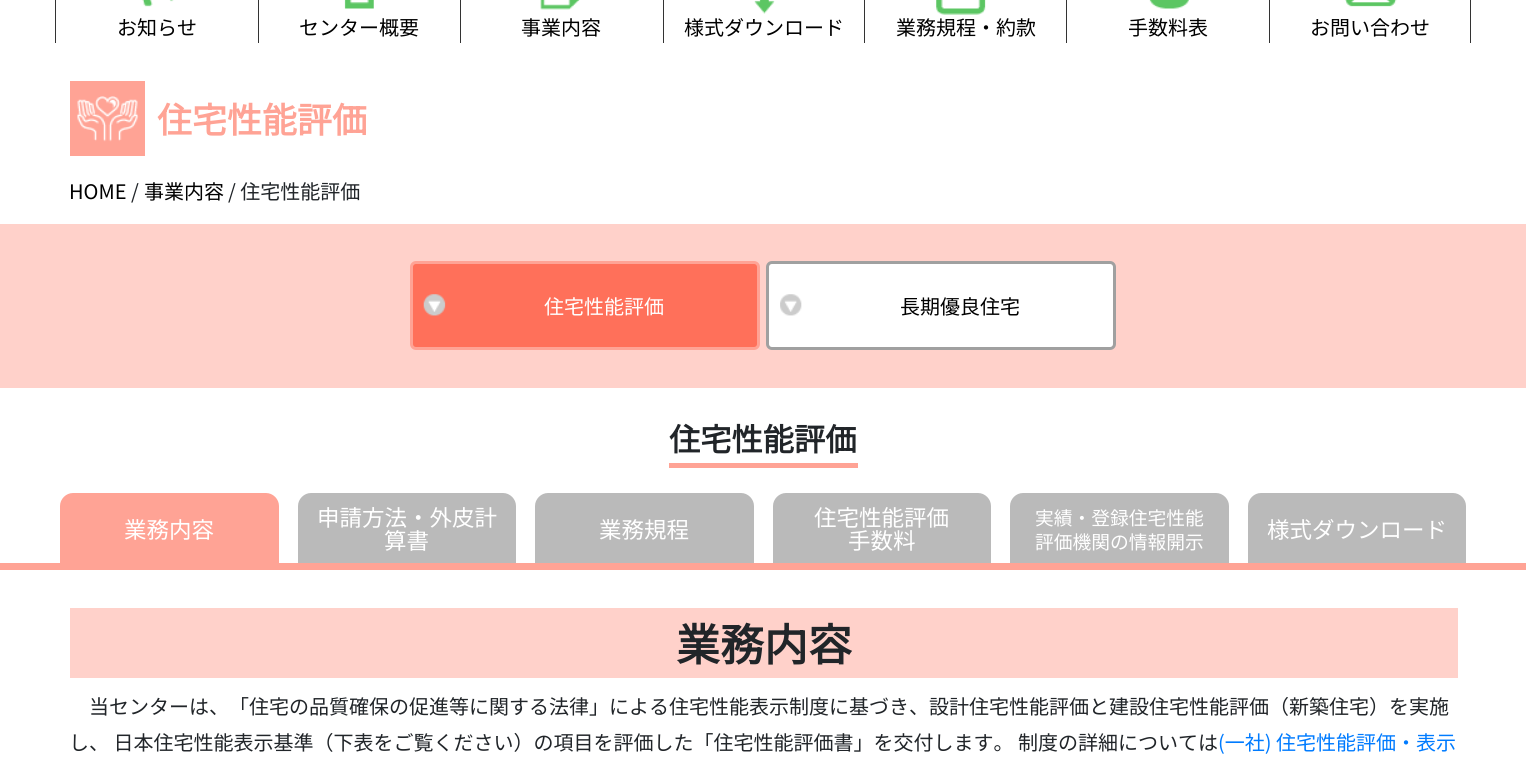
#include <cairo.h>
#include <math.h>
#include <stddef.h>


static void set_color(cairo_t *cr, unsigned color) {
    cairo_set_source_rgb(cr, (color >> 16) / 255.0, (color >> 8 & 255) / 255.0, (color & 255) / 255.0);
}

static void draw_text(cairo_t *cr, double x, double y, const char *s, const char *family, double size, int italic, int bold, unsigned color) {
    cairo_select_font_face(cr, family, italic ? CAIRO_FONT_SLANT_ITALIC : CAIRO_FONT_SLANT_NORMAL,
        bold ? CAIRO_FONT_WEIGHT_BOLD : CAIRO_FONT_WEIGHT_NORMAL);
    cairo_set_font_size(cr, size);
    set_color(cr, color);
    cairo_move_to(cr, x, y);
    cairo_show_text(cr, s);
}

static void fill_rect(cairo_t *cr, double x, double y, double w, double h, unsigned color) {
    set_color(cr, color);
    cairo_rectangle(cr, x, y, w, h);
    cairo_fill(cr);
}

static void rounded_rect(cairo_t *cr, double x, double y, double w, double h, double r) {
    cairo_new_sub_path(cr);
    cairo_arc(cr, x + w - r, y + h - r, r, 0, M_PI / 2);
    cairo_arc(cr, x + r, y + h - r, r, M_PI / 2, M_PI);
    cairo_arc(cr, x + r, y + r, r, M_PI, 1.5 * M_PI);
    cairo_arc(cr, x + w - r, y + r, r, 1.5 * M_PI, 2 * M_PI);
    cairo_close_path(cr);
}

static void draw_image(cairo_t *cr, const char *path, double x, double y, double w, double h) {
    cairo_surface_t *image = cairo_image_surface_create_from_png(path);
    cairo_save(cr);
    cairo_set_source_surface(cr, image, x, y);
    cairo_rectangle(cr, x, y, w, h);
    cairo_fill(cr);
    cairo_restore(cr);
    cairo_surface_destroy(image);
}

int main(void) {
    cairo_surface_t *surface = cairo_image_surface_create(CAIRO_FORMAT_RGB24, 1526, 761);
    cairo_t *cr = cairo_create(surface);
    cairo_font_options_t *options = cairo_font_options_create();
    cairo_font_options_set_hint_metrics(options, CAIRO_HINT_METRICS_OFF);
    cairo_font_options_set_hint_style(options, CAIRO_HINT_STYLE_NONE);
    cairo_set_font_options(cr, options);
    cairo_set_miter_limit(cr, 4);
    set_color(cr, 0xFFFFFF);
    cairo_paint(cr);
    fill_rect(cr, 55, 0, 1, 43, 0x333333);
    draw_image(cr, "assets/img1.png", 142, 0, 32, 7);
    draw_text(cr, 117, 35, "お知らせ", "Noto Sans JP Thin", 20, 0, 0, 0x000000);
    fill_rect(cr, 258, 0, 1, 43, 0x333333);
    draw_image(cr, "assets/img2.png", 344, 0, 30, 9);
    draw_text(cr, 299, 35, "センター概要", "Noto Sans JP Thin", 20, 0, 0, 0x000000);
    fill_rect(cr, 460, 0, 1, 43, 0x333333);
    draw_image(cr, "assets/img3.png", 540, 0, 40, 10);
    draw_text(cr, 521, 35, "事業内容", "Noto Sans JP Thin", 20, 0, 0, 0x000000);
    fill_rect(cr, 663, 0, 1, 43, 0x333333);
    draw_image(cr, "assets/img4.png", 754, 0, 21, 14);
    draw_text(cr, 684, 35, "様式ダウンロード", "Noto Sans JP Thin", 20, 0, 0, 0x000000);
    fill_rect(cr, 864, 0, 1, 43, 0x333333);
    draw_image(cr, "assets/img5.png", 936, 0, 50, 15);
    draw_text(cr, 896, 35, "業務規程・約款", "Noto Sans JP Thin", 20, 0, 0, 0x000000);
    fill_rect(cr, 1066, 0, 1, 43, 0x333333);
    draw_image(cr, "assets/img6.png", 1149, 0, 40, 9);
    draw_text(cr, 1128, 35, "手数料表", "Noto Sans JP Thin", 20, 0, 0, 0x000000);
    fill_rect(cr, 1470, 0, 1, 43, 0x333333);
    fill_rect(cr, 1269, 0, 1, 43, 0x333333);
    draw_image(cr, "assets/img7.png", 1345, 0, 52, 7);
    draw_text(cr, 1310, 35, "お問い合わせ", "Noto Sans JP Thin", 20, 0, 0, 0x000000);
    fill_rect(cr, 70, 81, 75, 75, 0xFFA395);
    draw_image(cr, "assets/img8.png", 77, 96, 62, 46);
    draw_text(cr, 157, 133, "住宅性能評価", "Noto Sans JP", 35, 0, 1, 0xFFA395);
    draw_text(cr, 69, 199, "HOME", "Noto Sans JP Thin", 20, 0, 0, 0x000000);
    draw_text(cr, 131, 199, "/", "Noto Sans JP Thin", 20, 0, 0, 0x212529);
    draw_text(cr, 144, 199, "事業内容", "Noto Sans JP Thin", 20, 0, 0, 0x000000);
    draw_text(cr, 228, 199, "/ 住宅性能評価", "Noto Sans JP Thin", 20, 0, 0, 0x212529);
    fill_rect(cr, 0, 224, 1526, 164, 0xFFD1CA);
    set_color(cr, 0xFF705A);
    rounded_rect(cr, 411.5, 262.5, 347, 86, 4.5);
    cairo_fill_preserve(cr);
    set_color(cr, 0xFFA395);
    cairo_set_line_width(cr, 3);
    cairo_stroke(cr);
    draw_image(cr, "assets/img9.png", 423, 294, 23, 22);
    draw_text(cr, 544, 314, "住宅性能評価", "Noto Sans JP Thin", 20, 0, 0, 0xFFFFFF);
    rounded_rect(cr, 767.5, 262.5, 347, 86, 4.5);
    cairo_fill_preserve(cr);
    set_color(cr, 0xA0A0A0);
    cairo_stroke(cr);
    draw_image(cr, "assets/img10.png", 780, 294, 22, 22);
    draw_text(cr, 900, 314, "長期優良住宅", "Noto Sans JP Thin", 20, 0, 0, 0x000000);
    fill_rect(cr, 669, 463, 189, 5, 0xFFA395);
    draw_text(cr, 669, 451, "住宅性能評価", "Noto Sans JP", 31.25, 0, 1, 0x212529);
    fill_rect(cr, 0, 563, 1526, 7, 0xFFA395);
    cairo_new_path(cr);
    cairo_move_to(cr, 73, 493);
    cairo_line_to(cr, 266, 493);
    cairo_curve_to(cr, 273, 493, 279, 499, 279, 506);
    cairo_line_to(cr, 279, 563);
    cairo_line_to(cr, 60, 563);
    cairo_line_to(cr, 60, 506);
    cairo_curve_to(cr, 60, 499, 66, 493, 73, 493);
    cairo_close_path(cr);
    cairo_fill(cr);
    draw_text(cr, 124, 538, "業務内容", "Noto Sans JP Thin", 22.5, 0, 0, 0xFFFFFF);
    set_color(cr, 0xBABABA);
    cairo_new_path(cr);
    cairo_move_to(cr, 311, 493);
    cairo_line_to(cr, 503, 493);
    cairo_curve_to(cr, 510, 493, 516, 499, 516, 506);
    cairo_line_to(cr, 516, 563);
    cairo_line_to(cr, 298, 563);
    cairo_line_to(cr, 298, 506);
    cairo_curve_to(cr, 298, 499, 304, 493, 311, 493);
    cairo_close_path(cr);
    cairo_fill(cr);
    draw_text(cr, 317, 526, "申請方法・外皮計", "Noto Sans JP Thin", 22.5, 0, 0, 0xFFFFFF);
    draw_text(cr, 384, 549, "算書", "Noto Sans JP Thin", 22.5, 0, 0, 0xFFFFFF);
    set_color(cr, 0xBABABA);
    cairo_new_path(cr);
    cairo_move_to(cr, 548, 493);
    cairo_line_to(cr, 741, 493);
    cairo_curve_to(cr, 748, 493, 754, 499, 754, 506);
    cairo_line_to(cr, 754, 563);
    cairo_line_to(cr, 535, 563);
    cairo_line_to(cr, 535, 506);
    cairo_curve_to(cr, 535, 499, 541, 493, 548, 493);
    cairo_close_path(cr);
    cairo_fill(cr);
    draw_text(cr, 599, 538, "業務規程", "Noto Sans JP Thin", 22.5, 0, 0, 0xFFFFFF);
    set_color(cr, 0xBABABA);
    cairo_new_path(cr);
    cairo_move_to(cr, 786, 493);
    cairo_line_to(cr, 978, 493);
    cairo_curve_to(cr, 985, 493, 991, 499, 991, 506);
    cairo_line_to(cr, 991, 563);
    cairo_line_to(cr, 773, 563);
    cairo_line_to(cr, 773, 506);
    cairo_curve_to(cr, 773, 499, 779, 493, 786, 493);
    cairo_close_path(cr);
    cairo_fill(cr);
    draw_text(cr, 814, 526, "住宅性能評価", "Noto Sans JP Thin", 22.5, 0, 0, 0xFFFFFF);
    draw_text(cr, 848, 549, "手数料", "Noto Sans JP Thin", 22.5, 0, 0, 0xFFFFFF);
    set_color(cr, 0xBABABA);
    cairo_new_path(cr);
    cairo_move_to(cr, 1023, 493);
    cairo_line_to(cr, 1216, 493);
    cairo_curve_to(cr, 1223, 493, 1229, 499, 1229, 506);
    cairo_line_to(cr, 1229, 563);
    cairo_line_to(cr, 1010, 563);
    cairo_line_to(cr, 1010, 506);
    cairo_curve_to(cr, 1010, 499, 1016, 493, 1023, 493);
    cairo_close_path(cr);
    cairo_fill(cr);
    draw_text(cr, 1035, 525, "実績・登録住宅性能", "Noto Sans JP Thin", 18.75, 0, 0, 0xFFFFFF);
    draw_text(cr, 1035, 549, "評価機関の情報開示", "Noto Sans JP Thin", 18.75, 0, 0, 0xFFFFFF);
    set_color(cr, 0xBABABA);
    cairo_new_path(cr);
    cairo_move_to(cr, 1261, 493);
    cairo_line_to(cr, 1453, 493);
    cairo_curve_to(cr, 1460, 493, 1466, 499, 1466, 506);
    cairo_line_to(cr, 1466, 563);
    cairo_line_to(cr, 1248, 563);
    cairo_line_to(cr, 1248, 506);
    cairo_curve_to(cr, 1248, 499, 1254, 493, 1261, 493);
    cairo_close_path(cr);
    cairo_fill(cr);
    draw_text(cr, 1267, 538, "様式ダウンロード", "Noto Sans JP Thin", 22.5, 0, 0, 0xFFFFFF);
    fill_rect(cr, 70, 608, 1388, 70, 0xFFD1CA);
    draw_text(cr, 676, 661, "業務内容", "Noto Sans JP", 44, 0, 1, 0x212529);
    draw_text(cr, 89, 714, "当センターは、「住宅の品質確保の促進等に関する法律」による住宅性能表示制度に基づき、設計住宅性能評価と建設住宅性能評価（新築住宅）を実施", "Noto Sans JP Thin", 20, 0, 0, 0x212529);
    draw_text(cr, 69, 750, "し、 日本住宅性能表示基準（下表をご覧ください）の項目を評価した「住宅性能評価書」を交付します。 制度の詳細については", "Noto Sans JP Thin", 20, 0, 0, 0x212529);
    draw_text(cr, 1218, 750, "(一社) 住宅性能評価・表示", "Noto Sans JP Thin", 20, 0, 0, 0x007BFF);
    cairo_surface_write_to_png(surface, "output.png");
    cairo_font_options_destroy(options);
    cairo_destroy(cr);
    cairo_surface_destroy(surface);
    return 0;
}
